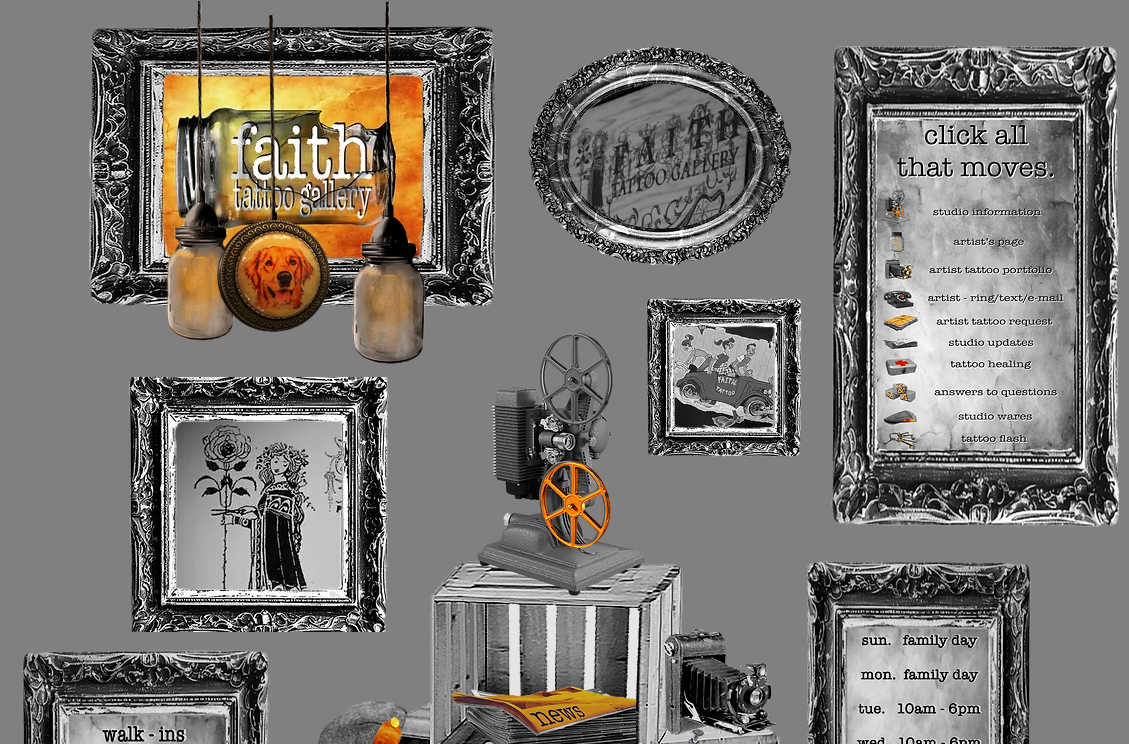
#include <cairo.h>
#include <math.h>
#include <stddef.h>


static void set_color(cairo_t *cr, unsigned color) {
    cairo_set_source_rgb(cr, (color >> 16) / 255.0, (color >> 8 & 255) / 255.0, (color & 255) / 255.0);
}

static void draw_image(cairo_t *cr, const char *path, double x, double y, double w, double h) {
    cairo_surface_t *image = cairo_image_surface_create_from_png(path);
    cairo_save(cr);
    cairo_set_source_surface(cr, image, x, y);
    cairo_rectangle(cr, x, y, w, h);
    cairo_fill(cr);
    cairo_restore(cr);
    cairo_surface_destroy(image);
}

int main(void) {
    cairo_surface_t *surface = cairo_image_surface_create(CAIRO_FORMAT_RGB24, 1129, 744);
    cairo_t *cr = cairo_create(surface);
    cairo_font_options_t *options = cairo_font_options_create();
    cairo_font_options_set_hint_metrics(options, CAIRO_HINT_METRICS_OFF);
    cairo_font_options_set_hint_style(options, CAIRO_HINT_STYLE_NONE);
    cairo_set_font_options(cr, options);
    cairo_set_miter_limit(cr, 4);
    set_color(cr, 0x808080);
    cairo_paint(cr);
    draw_image(cr, "assets/img7.png", 149, 65, 285, 217);
    draw_image(cr, "assets/img4.png", 89, 26, 407, 282);
    draw_image(cr, "assets/img1.png", 166, 1, 68, 340);
    draw_image(cr, "assets/img2.png", 217, 15, 114, 317);
    draw_image(cr, "assets/img3.png", 352, 1, 74, 363);
    draw_image(cr, "assets/img8.png", 554, 78, 212, 162);
    draw_image(cr, "assets/img5.png", 528, 45, 264, 221);
    draw_image(cr, "assets/img6.png", 831, 46, 289, 481);
    draw_image(cr, "assets/img12.png", 669, 322, 112, 110);
    draw_image(cr, "assets/img9.png", 646, 298, 156, 159);
    draw_image(cr, "assets/img13.png", 174, 397, 189, 202);
    draw_image(cr, "assets/img10.png", 128, 377, 261, 255);
    draw_image(cr, "assets/img15.png", 374, 561, 407, 183);
    draw_image(cr, "assets/img11.png", 477, 333, 168, 263);
    draw_image(cr, "assets/img14.png", 540, 462, 71, 87);
    draw_image(cr, "assets/img16.png", 807, 561, 224, 183);
    draw_image(cr, "assets/img17.png", 22, 650, 248, 94);
    draw_image(cr, "assets/img21.png", 452, 688, 184, 56);
    draw_image(cr, "assets/img18.png", 451, 686, 185, 48);
    draw_image(cr, "assets/img23.png", 687, 729, 17, 15);
    draw_image(cr, "assets/img19.png", 663, 628, 114, 109);
    draw_image(cr, "assets/img20.png", 317, 700, 91, 44);
    draw_image(cr, "assets/img22.png", 372, 717, 31, 27);
    cairo_surface_write_to_png(surface, "output.png");
    cairo_font_options_destroy(options);
    cairo_destroy(cr);
    cairo_surface_destroy(surface);
    return 0;
}
